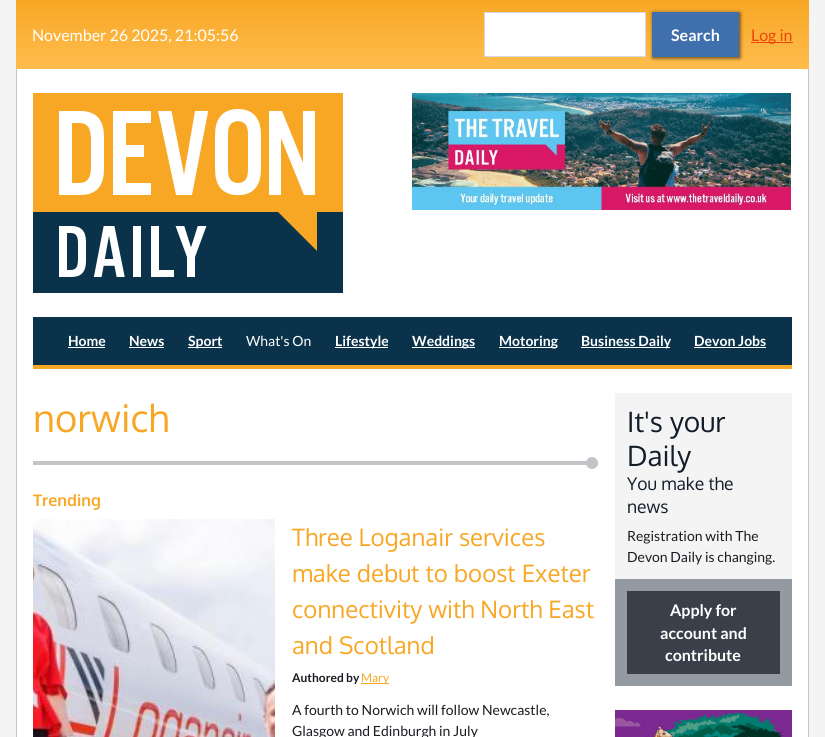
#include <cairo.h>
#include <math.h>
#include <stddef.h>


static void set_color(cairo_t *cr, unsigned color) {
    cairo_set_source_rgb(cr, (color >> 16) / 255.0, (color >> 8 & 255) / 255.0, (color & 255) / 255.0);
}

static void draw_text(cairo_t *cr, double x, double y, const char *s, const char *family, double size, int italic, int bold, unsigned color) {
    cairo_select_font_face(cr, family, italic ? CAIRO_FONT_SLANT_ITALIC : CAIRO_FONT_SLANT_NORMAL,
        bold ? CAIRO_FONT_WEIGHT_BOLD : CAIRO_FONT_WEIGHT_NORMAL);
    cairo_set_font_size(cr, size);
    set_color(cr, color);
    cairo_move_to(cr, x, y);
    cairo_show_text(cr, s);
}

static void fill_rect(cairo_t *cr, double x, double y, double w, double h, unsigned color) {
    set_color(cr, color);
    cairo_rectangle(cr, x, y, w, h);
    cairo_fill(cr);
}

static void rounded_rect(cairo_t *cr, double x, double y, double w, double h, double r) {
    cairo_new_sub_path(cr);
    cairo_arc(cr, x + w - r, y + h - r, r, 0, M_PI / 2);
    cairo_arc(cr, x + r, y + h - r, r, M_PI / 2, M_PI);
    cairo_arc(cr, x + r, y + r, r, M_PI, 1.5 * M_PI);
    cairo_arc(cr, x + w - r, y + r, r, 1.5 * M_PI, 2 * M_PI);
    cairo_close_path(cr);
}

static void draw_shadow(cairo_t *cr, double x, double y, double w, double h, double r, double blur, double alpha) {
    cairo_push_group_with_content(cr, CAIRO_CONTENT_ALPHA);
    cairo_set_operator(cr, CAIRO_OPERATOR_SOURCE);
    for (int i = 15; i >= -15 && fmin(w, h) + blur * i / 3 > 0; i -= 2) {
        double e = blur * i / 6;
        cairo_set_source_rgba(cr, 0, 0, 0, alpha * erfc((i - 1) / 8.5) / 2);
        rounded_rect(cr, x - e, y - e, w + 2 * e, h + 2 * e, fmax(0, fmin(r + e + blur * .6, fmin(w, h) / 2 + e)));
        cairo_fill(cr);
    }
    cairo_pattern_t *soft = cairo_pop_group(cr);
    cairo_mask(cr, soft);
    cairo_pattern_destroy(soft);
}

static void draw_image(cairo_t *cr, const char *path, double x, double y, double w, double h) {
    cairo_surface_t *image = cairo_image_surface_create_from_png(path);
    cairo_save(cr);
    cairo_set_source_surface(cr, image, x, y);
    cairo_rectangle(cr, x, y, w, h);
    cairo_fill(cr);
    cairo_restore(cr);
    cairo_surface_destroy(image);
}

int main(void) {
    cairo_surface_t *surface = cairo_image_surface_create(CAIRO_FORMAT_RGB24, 825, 737);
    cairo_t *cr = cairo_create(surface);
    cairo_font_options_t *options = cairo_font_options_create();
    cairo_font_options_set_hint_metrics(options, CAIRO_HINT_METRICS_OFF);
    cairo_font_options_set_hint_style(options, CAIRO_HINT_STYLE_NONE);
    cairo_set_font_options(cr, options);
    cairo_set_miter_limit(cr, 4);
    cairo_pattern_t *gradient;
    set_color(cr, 0xF4F4F4);
    cairo_paint(cr);
    gradient = cairo_pattern_create_linear(413, 0, 413, 69);
    cairo_pattern_add_color_stop_rgba(gradient, 0, 0.969, 0.655, 0.141, 1);
    cairo_pattern_add_color_stop_rgba(gradient, 1, 1, 0.741, 0.306, 1);
    cairo_set_source(cr, gradient);
    cairo_pattern_destroy(gradient);
    cairo_rectangle(cr, 16, 0, 793, 69);
    cairo_fill(cr);
    draw_text(cr, 32, 41, "November 26 2025, 21:05:56", "Lato", 16, 0, 0, 0xFFFFFF);
    cairo_rectangle(cr, 484.5, 12.5, 161, 44);
    cairo_fill_preserve(cr);
    set_color(cr, 0xD5D8DC);
    cairo_set_line_width(cr, 1);
    cairo_stroke(cr);
    set_color(cr, 0x000000);
    draw_shadow(cr, 653, 13, 87, 45, 0, 2, 0.7);
    fill_rect(cr, 652, 12, 87, 45, 0x3F6FAD);
    draw_text(cr, 671, 41, "Search", "Lato", 16, 0, 1, 0xFFFFFF);
    fill_rect(cr, 751, 42, 42, 1, 0xEC4507);
    draw_text(cr, 751, 41, "Log in", "Lato", 16, 0, 0, 0xEC4507);
    fill_rect(cr, 17, 69, 791, 668, 0xFFFFFF);
    fill_rect(cr, 808, 69, 1, 668, 0xC2C4C7);
    fill_rect(cr, 16, 69, 1, 668, 0xC2C4C7);
    draw_image(cr, "assets/img1.png", 33, 93, 310, 200);
    draw_image(cr, "assets/img2.png", 412, 93, 379, 117);
    fill_rect(cr, 33, 317, 759, 48, 0x0A324A);
    fill_rect(cr, 33, 365, 759, 4, 0xF7A724);
    draw_text(cr, 68, 346, "Home", "Lato", 14, 0, 1, 0xFFFFFF);
    fill_rect(cr, 68, 347, 37, 1, 0xFFFFFF);
    draw_text(cr, 129, 346, "News", "Lato", 14, 0, 1, 0xFFFFFF);
    fill_rect(cr, 129, 347, 35, 1, 0xFFFFFF);
    fill_rect(cr, 188, 347, 34, 1, 0xFFFFFF);
    draw_text(cr, 188, 346, "Sport", "Lato", 14, 0, 1, 0xFFFFFF);
    draw_text(cr, 246, 346, "What's On", "Lato", 14, 0, 0, 0xFFFFFF);
    fill_rect(cr, 335, 347, 53, 1, 0xFFFFFF);
    draw_text(cr, 335, 346, "Lifestyle", "Lato", 14, 0, 1, 0xFFFFFF);
    fill_rect(cr, 412, 347, 63, 1, 0xFFFFFF);
    draw_text(cr, 412, 346, "Weddings", "Lato", 14, 0, 1, 0xFFFFFF);
    fill_rect(cr, 499, 347, 58, 1, 0xFFFFFF);
    draw_text(cr, 499, 346, "Motoring", "Lato", 14, 0, 1, 0xFFFFFF);
    fill_rect(cr, 581, 347, 89, 1, 0xFFFFFF);
    draw_text(cr, 581, 346, "Business Daily", "Lato", 14, 0, 1, 0xFFFFFF);
    draw_text(cr, 694, 346, "Devon Jobs", "Lato", 14, 0, 1, 0xFFFFFF);
    fill_rect(cr, 694, 347, 72, 1, 0xFFFFFF);
    fill_rect(cr, 33, 461, 565, 4, 0xC2C4C7);
    draw_text(cr, 33, 432, "norwich", "Oxygen", 38, 0, 0, 0xF7A724);
    set_color(cr, 0xC2C4C7);
    cairo_new_path(cr);
    cairo_arc(cr, 592, 463, 6, 0, 2 * M_PI);
    cairo_fill(cr);
    draw_text(cr, 33, 506, "Trending", "Oxygen", 16, 0, 1, 0xF7A724);
    draw_image(cr, "assets/img3.png", 33, 519, 242, 218);
    draw_text(cr, 292, 546, "Three Loganair services", "Oxygen", 24, 0, 0, 0xF7A724);
    draw_text(cr, 292, 582, "make debut to boost Exeter", "Oxygen", 24, 0, 0, 0xF7A724);
    draw_text(cr, 292, 618, "connectivity with North East", "Oxygen", 24, 0, 0, 0xF7A724);
    draw_text(cr, 292, 654, "and Scotland", "Oxygen", 24, 0, 0, 0xF7A724);
    draw_text(cr, 292, 682, "Authored by", "Lato", 12, 0, 1, 0x181B20);
    fill_rect(cr, 361, 683, 28, 1, 0xF7A724);
    draw_text(cr, 361, 682, "Mary", "Lato", 12, 0, 0, 0xF7A724);
    draw_text(cr, 292, 715, "A fourth to Norwich will follow Newcastle,", "Lato", 14, 0, 0, 0x181B20);
    draw_text(cr, 292, 736, "Glasgow and Edinburgh in July", "Lato", 14, 0, 0, 0x181B20);
    fill_rect(cr, 615, 393, 177, 186, 0xF4F4F4);
    draw_text(cr, 627, 432, "It's your", "Oxygen", 28, 0, 0, 0x121D2A);
    draw_text(cr, 627, 466, "Daily", "Oxygen", 28, 0, 0, 0x121D2A);
    draw_text(cr, 627, 490, "You make the", "Oxygen", 17.5, 0, 0, 0x121D2A);
    draw_text(cr, 627, 513, "news", "Oxygen", 17.5, 0, 0, 0x121D2A);
    draw_text(cr, 627, 541, "Registration with The", "Lato", 14, 0, 0, 0x181B20);
    draw_text(cr, 627, 562, "Devon Daily is changing.", "Lato", 14, 0, 0, 0x181B20);
    fill_rect(cr, 615, 579, 177, 107, 0x949AA1);
    fill_rect(cr, 627, 591, 153, 83, 0x3A404A);
    draw_text(cr, 670, 616, "Apply for", "Lato", 16, 0, 1, 0xFFFFFF);
    draw_text(cr, 660, 639, "account and", "Lato", 16, 0, 1, 0xFFFFFF);
    draw_text(cr, 665, 661, "contribute", "Lato", 16, 0, 1, 0xFFFFFF);
    draw_image(cr, "assets/img4.png", 615, 710, 177, 27);
    cairo_surface_write_to_png(surface, "output.png");
    cairo_font_options_destroy(options);
    cairo_destroy(cr);
    cairo_surface_destroy(surface);
    return 0;
}
